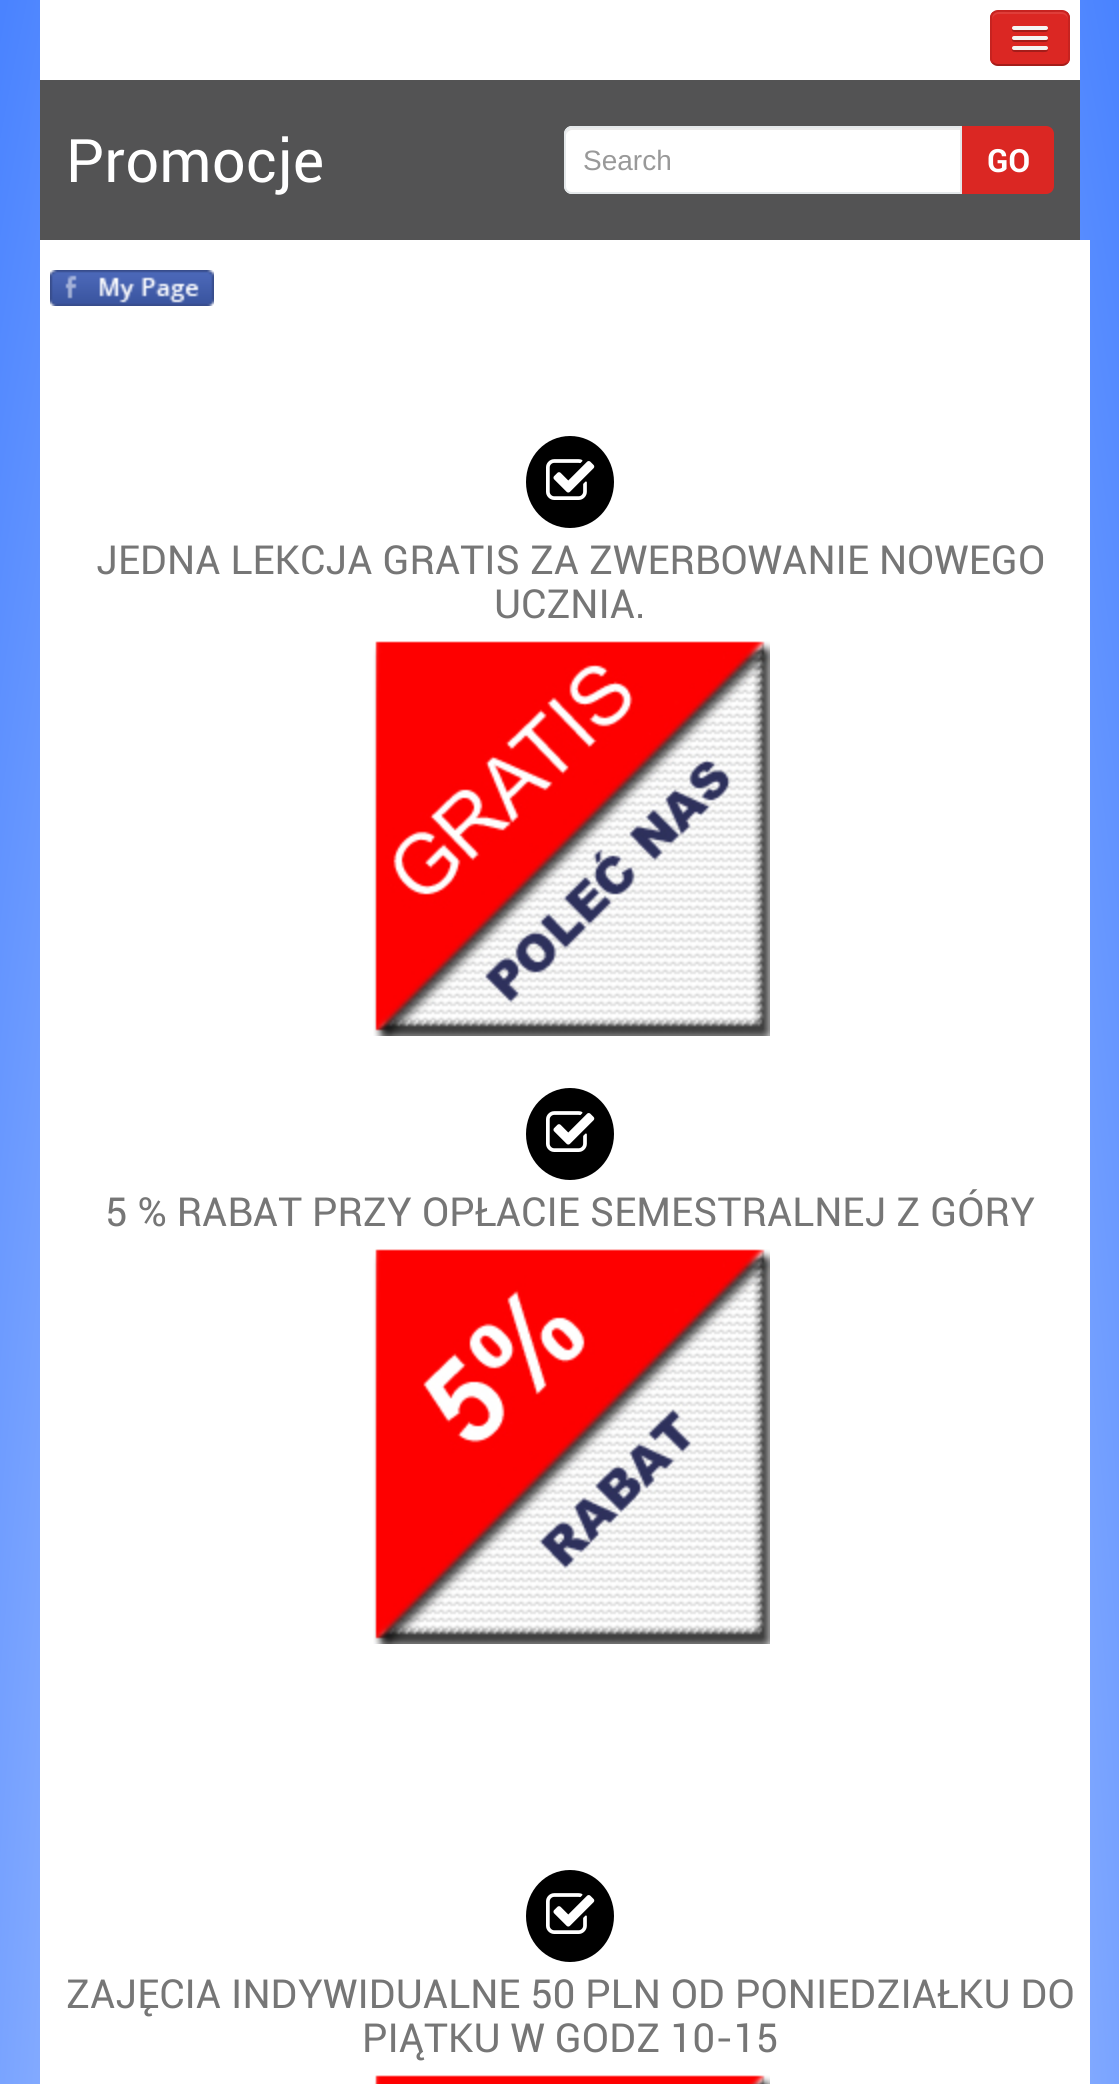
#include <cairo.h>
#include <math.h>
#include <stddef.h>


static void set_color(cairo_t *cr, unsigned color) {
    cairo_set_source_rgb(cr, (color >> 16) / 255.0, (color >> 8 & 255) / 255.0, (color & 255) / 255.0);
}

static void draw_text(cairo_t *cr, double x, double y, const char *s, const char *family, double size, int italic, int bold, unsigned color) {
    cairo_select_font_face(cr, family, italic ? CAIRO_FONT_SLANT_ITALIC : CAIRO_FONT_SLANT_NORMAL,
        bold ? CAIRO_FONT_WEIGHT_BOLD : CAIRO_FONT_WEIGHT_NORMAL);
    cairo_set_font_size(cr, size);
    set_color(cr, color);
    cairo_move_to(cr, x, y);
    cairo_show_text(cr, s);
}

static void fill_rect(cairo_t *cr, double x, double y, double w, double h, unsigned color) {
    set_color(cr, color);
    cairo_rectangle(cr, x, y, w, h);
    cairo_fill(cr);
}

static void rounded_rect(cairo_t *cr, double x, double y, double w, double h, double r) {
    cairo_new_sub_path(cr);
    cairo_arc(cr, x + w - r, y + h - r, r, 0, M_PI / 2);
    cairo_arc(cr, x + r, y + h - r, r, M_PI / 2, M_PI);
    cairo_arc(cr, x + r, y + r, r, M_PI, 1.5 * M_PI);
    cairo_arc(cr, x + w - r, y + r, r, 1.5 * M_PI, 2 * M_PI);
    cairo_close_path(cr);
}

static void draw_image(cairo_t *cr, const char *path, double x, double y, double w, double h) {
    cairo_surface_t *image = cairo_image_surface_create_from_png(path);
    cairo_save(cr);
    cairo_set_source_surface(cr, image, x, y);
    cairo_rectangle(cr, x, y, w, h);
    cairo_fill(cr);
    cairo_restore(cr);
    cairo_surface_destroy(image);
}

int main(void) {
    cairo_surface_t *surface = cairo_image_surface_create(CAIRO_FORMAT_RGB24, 1119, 2084);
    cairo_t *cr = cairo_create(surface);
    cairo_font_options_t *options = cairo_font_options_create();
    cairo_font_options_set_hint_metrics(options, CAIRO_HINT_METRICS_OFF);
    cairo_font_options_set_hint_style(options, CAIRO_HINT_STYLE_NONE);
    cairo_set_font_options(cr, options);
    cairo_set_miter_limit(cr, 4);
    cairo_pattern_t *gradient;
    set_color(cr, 0xFFFFFF);
    cairo_paint(cr);
    gradient = cairo_pattern_create_radial(0, 0, 0, 0, 0, 1);
    cairo_pattern_set_matrix(gradient, &(cairo_matrix_t){1.0 / 792, 0, 0, 1.0 / 4165, -1.0 * 560 / 792, -1.0 * 2945 / 4165});
    cairo_pattern_add_color_stop_rgba(gradient, 0, 1, 1, 1, 1);
    cairo_pattern_add_color_stop_rgba(gradient, 1, 0.29, 0.514, 1, 1);
    cairo_set_source(cr, gradient);
    cairo_pattern_destroy(gradient);
    cairo_rectangle(cr, 0, 0, 1119, 2084);
    cairo_fill(cr);
    fill_rect(cr, 40, 0, 1040, 80, 0xFFFFFF);
    set_color(cr, 0xDB2723);
    rounded_rect(cr, 990, 10, 80, 56, 8);
    cairo_fill(cr);
    cairo_save(cr);
    rounded_rect(cr, 990, 10, 80, 56, 8);
    cairo_clip(cr);
    fill_rect(cr, 990, 12, 80, 52, 0xDB2723);
    cairo_restore(cr);
    set_color(cr, 0xDF3D39);
    cairo_new_path(cr);
    cairo_move_to(cr, 998, 14);
    cairo_line_to(cr, 1062, 14);
    cairo_curve_to(cr, 1065, 14, 1068, 17, 1068, 20);
    cairo_curve_to(cr, 1068, 10, 1060, 12, 1051, 12);
    cairo_line_to(cr, 1009, 12);
    cairo_curve_to(cr, 1000, 12, 992, 10, 992, 20);
    cairo_curve_to(cr, 992, 17, 995, 14, 998, 14);
    cairo_close_path(cr);
    cairo_fill(cr);
    cairo_new_path(cr);
    cairo_move_to(cr, 1067, 63);
    cairo_curve_to(cr, 1065.5, 64.5, 1064, 65, 1062, 65);
    cairo_line_to(cr, 998, 65);
    cairo_curve_to(cr, 996, 65, 994.5, 64.5, 993, 63);
    cairo_set_source_rgba(cr, 0, 0, 0, 0.25);
    cairo_stroke(cr);
    cairo_new_path(cr);
    cairo_move_to(cr, 993, 63);
    cairo_curve_to(cr, 991.5, 61.5, 991, 60, 991, 58);
    cairo_line_to(cr, 991, 18);
    cairo_curve_to(cr, 991, 16, 991.5, 14.5, 993, 13);
    cairo_curve_to(cr, 994.5, 11.5, 996, 11, 998, 11);
    cairo_line_to(cr, 1062, 11);
    cairo_curve_to(cr, 1064, 11, 1065.5, 11.5, 1067, 13);
    cairo_curve_to(cr, 1068.5, 14.5, 1069, 16, 1069, 18);
    cairo_line_to(cr, 1069, 58);
    cairo_curve_to(cr, 1069, 60, 1068.5, 61.5, 1067, 63);
    cairo_set_source_rgba(cr, 0, 0, 0, 0.1);
    cairo_stroke(cr);
    set_color(cr, 0xA41D1A);
    cairo_new_path(cr);
    cairo_move_to(cr, 1012.5, 29);
    cairo_curve_to(cr, 1010, 33, 1019, 32, 1019.5, 32);
    cairo_line_to(cr, 1040.5, 32);
    cairo_curve_to(cr, 1041, 32, 1050, 33, 1047.5, 29);
    cairo_curve_to(cr, 1047.5, 29.5, 1046.5, 30, 1046, 30);
    cairo_line_to(cr, 1014, 30);
    cairo_curve_to(cr, 1013.5, 30, 1012.5, 29.5, 1012.5, 29);
    cairo_close_path(cr);
    cairo_fill(cr);
    set_color(cr, 0xF5F5F5);
    rounded_rect(cr, 1012, 26, 36, 4, 2);
    cairo_fill(cr);
    set_color(cr, 0xA41D1A);
    cairo_new_path(cr);
    cairo_move_to(cr, 1012.5, 39);
    cairo_curve_to(cr, 1010, 43, 1019, 42, 1019.5, 42);
    cairo_line_to(cr, 1040.5, 42);
    cairo_curve_to(cr, 1041, 42, 1050, 43, 1047.5, 39);
    cairo_curve_to(cr, 1047.5, 39.5, 1046.5, 40, 1046, 40);
    cairo_line_to(cr, 1014, 40);
    cairo_curve_to(cr, 1013.5, 40, 1012.5, 39.5, 1012.5, 39);
    cairo_close_path(cr);
    cairo_fill(cr);
    set_color(cr, 0xF5F5F5);
    rounded_rect(cr, 1012, 36, 36, 4, 2);
    cairo_fill(cr);
    set_color(cr, 0xA41D1A);
    cairo_new_path(cr);
    cairo_move_to(cr, 1012.5, 49);
    cairo_curve_to(cr, 1010, 53, 1019, 52, 1019.5, 52);
    cairo_line_to(cr, 1040.5, 52);
    cairo_curve_to(cr, 1041, 52, 1050, 53, 1047.5, 49);
    cairo_curve_to(cr, 1047.5, 49.5, 1046.5, 50, 1046, 50);
    cairo_line_to(cr, 1014, 50);
    cairo_curve_to(cr, 1013.5, 50, 1012.5, 49.5, 1012.5, 49);
    cairo_close_path(cr);
    cairo_fill(cr);
    set_color(cr, 0xF5F5F5);
    rounded_rect(cr, 1012, 46, 36, 4, 2);
    cairo_fill(cr);
    fill_rect(cr, 40, 80, 1040, 160, 0x535354);
    draw_text(cr, 66, 182, "Promocje", "Roboto", 60, 0, 0, 0xFFFFFF);
    cairo_new_path(cr);
    cairo_move_to(cr, 572, 126);
    cairo_line_to(cr, 962, 126);
    cairo_line_to(cr, 962, 194);
    cairo_line_to(cr, 572, 194);
    cairo_curve_to(cr, 567.5, 194, 564, 190.5, 564, 186);
    cairo_line_to(cr, 564, 134);
    cairo_curve_to(cr, 564, 129.5, 567.5, 126, 572, 126);
    cairo_close_path(cr);
    cairo_fill(cr);
    set_color(cr, 0xECECEC);
    cairo_new_path(cr);
    cairo_move_to(cr, 572, 130);
    cairo_line_to(cr, 960, 130);
    cairo_line_to(cr, 960, 128);
    cairo_line_to(cr, 572, 128);
    cairo_curve_to(cr, 567, 128, 566, 132, 566, 136);
    cairo_curve_to(cr, 566, 133, 569, 130, 572, 130);
    cairo_close_path(cr);
    cairo_fill(cr);
    cairo_new_path(cr);
    cairo_move_to(cr, 572, 127);
    cairo_line_to(cr, 961, 127);
    cairo_line_to(cr, 961, 193);
    cairo_line_to(cr, 572, 193);
    cairo_curve_to(cr, 568, 193, 565, 190, 565, 186);
    cairo_line_to(cr, 565, 134);
    cairo_curve_to(cr, 565, 130, 568, 127, 572, 127);
    cairo_close_path(cr);
    set_color(cr, 0xE4E8EA);
    cairo_stroke(cr);
    draw_text(cr, 583, 170, "Search", "Liberation Sans", 28, 0, 0, 0x999999);
    set_color(cr, 0xDB2723);
    cairo_new_path(cr);
    cairo_move_to(cr, 962, 126);
    cairo_line_to(cr, 1046, 126);
    cairo_curve_to(cr, 1050.5, 126, 1054, 129.5, 1054, 134);
    cairo_line_to(cr, 1054, 186);
    cairo_curve_to(cr, 1054, 190.5, 1050.5, 194, 1046, 194);
    cairo_line_to(cr, 962, 194);
    cairo_close_path(cr);
    cairo_fill(cr);
    draw_text(cr, 987, 172, "GO", "Roboto", 32, 0, 1, 0xFFFFFF);
    fill_rect(cr, 40, 240, 1050, 1844, 0xFFFFFF);
    draw_image(cr, "assets/img1.png", 50, 270, 164, 36);
    set_color(cr, 0x000000);
    cairo_new_path(cr);
    cairo_move_to(cr, 570, 436);
    cairo_curve_to(cr, 594.5, 436, 614, 456.5, 614, 482);
    cairo_curve_to(cr, 614, 507.5, 594.5, 528, 570, 528);
    cairo_curve_to(cr, 545.5, 528, 526, 507.5, 526, 482);
    cairo_curve_to(cr, 526, 456.5, 545.5, 436, 570, 436);
    cairo_close_path(cr);
    cairo_fill(cr);
    draw_image(cr, "assets/img2.png", 546, 459, 49, 41);
    draw_text(cr, 96, 574, "JEDNA LEKCJA GRATIS ZA ZWERBOWANIE NOWEGO", "Roboto", 40, 0, 0, 0x767676);
    draw_text(cr, 494, 618, "UCZNIA.", "Roboto", 40, 0, 0, 0x767676);
    draw_image(cr, "assets/img3.png", 373, 641, 397, 395);
    set_color(cr, 0x000000);
    cairo_new_path(cr);
    cairo_move_to(cr, 570, 1088);
    cairo_curve_to(cr, 594.5, 1088, 614, 1108.5, 614, 1134);
    cairo_curve_to(cr, 614, 1159.5, 594.5, 1180, 570, 1180);
    cairo_curve_to(cr, 545.5, 1180, 526, 1159.5, 526, 1134);
    cairo_curve_to(cr, 526, 1108.5, 545.5, 1088, 570, 1088);
    cairo_close_path(cr);
    cairo_fill(cr);
    draw_image(cr, "assets/img2.png", 546, 1111, 49, 41);
    draw_text(cr, 105, 1226, "5 % RABAT PRZY OPŁACIE SEMESTRALNEJ Z GÓRY", "Roboto", 40, 0, 0, 0x767676);
    draw_image(cr, "assets/img4.png", 373, 1249, 397, 395);
    set_color(cr, 0x000000);
    cairo_new_path(cr);
    cairo_move_to(cr, 570, 1870);
    cairo_curve_to(cr, 594.5, 1870, 614, 1890.5, 614, 1916);
    cairo_curve_to(cr, 614, 1941.5, 594.5, 1962, 570, 1962);
    cairo_curve_to(cr, 545.5, 1962, 526, 1941.5, 526, 1916);
    cairo_curve_to(cr, 526, 1890.5, 545.5, 1870, 570, 1870);
    cairo_close_path(cr);
    cairo_fill(cr);
    draw_image(cr, "assets/img2.png", 546, 1893, 49, 41);
    draw_text(cr, 66, 2008, "ZAJĘCIA INDYWIDUALNE 50 PLN OD PONIEDZIAŁKU DO", "Roboto", 40, 0, 0, 0x767676);
    draw_text(cr, 362, 2052, "PIĄTKU W GODZ 10-15", "Roboto", 40, 0, 0, 0x767676);
    draw_image(cr, "assets/img5.png", 374, 2075, 396, 9);
    cairo_surface_write_to_png(surface, "output.png");
    cairo_font_options_destroy(options);
    cairo_destroy(cr);
    cairo_surface_destroy(surface);
    return 0;
}
